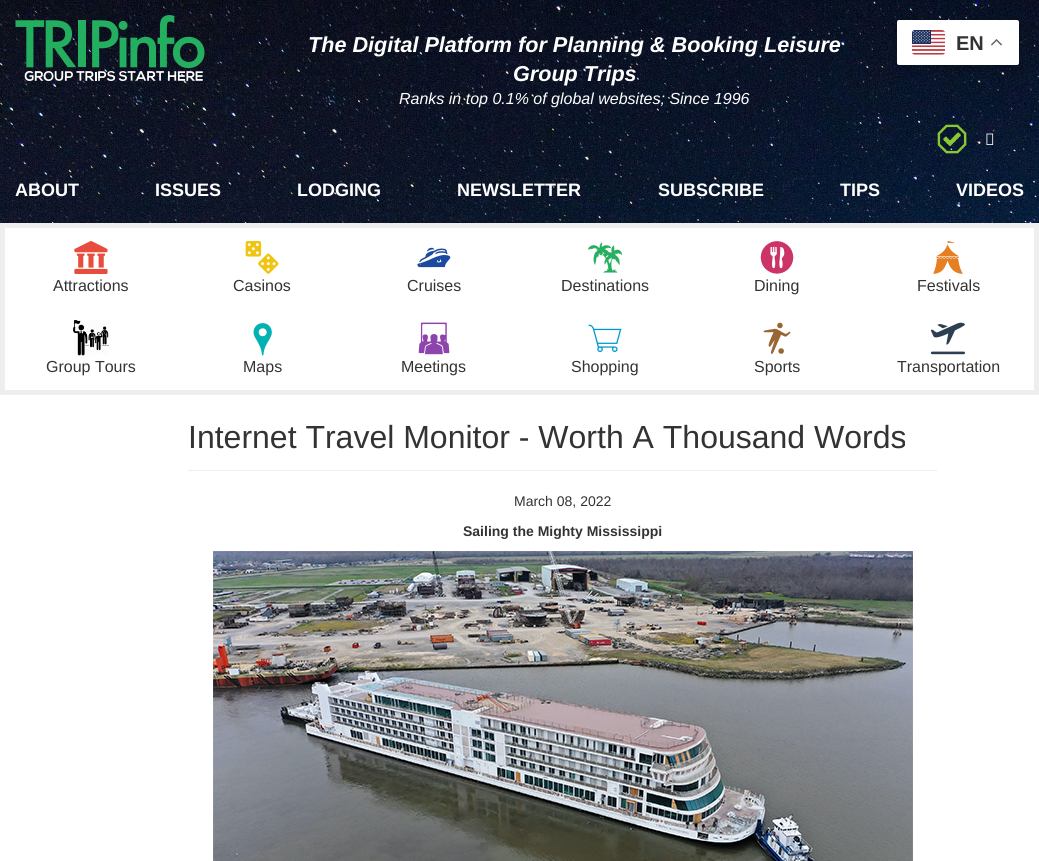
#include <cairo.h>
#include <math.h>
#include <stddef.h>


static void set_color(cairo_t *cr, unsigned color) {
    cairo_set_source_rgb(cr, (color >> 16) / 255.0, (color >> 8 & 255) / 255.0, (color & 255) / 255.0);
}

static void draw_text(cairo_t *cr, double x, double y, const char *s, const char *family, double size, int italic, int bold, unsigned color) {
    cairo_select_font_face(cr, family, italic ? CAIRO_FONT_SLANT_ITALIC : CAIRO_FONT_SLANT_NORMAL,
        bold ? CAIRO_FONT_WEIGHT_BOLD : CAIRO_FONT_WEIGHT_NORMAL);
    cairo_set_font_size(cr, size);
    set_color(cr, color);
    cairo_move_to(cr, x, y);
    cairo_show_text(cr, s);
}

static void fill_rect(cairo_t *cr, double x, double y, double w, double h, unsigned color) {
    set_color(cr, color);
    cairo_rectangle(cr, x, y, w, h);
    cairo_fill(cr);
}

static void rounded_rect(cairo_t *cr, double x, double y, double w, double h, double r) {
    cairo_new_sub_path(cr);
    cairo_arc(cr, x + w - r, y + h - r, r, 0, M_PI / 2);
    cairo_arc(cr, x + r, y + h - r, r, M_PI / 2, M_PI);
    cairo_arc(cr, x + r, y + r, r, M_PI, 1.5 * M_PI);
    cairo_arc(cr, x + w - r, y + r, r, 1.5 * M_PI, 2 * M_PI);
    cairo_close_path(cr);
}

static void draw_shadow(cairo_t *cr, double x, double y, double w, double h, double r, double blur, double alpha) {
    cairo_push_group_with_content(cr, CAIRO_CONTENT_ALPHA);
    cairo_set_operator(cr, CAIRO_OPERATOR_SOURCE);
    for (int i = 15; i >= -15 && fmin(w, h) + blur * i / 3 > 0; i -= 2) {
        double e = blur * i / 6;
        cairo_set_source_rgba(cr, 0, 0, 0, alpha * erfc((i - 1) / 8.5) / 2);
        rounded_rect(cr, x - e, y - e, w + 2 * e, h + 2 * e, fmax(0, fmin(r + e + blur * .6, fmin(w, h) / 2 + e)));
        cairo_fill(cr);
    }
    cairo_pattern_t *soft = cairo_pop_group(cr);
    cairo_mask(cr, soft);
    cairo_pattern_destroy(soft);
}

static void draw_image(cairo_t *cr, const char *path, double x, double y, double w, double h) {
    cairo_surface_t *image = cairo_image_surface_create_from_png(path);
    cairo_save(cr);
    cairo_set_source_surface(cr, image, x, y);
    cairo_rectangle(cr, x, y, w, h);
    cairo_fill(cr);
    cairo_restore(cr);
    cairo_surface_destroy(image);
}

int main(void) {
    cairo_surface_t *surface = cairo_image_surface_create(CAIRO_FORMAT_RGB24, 1039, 861);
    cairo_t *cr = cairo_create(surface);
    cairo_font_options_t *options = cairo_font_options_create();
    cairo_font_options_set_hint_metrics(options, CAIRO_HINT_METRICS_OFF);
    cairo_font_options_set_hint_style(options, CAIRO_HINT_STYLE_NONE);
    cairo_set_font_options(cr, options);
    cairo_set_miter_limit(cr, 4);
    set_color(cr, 0xFFFFFF);
    cairo_paint(cr);
    draw_image(cr, "assets/img1.png", 0, 0, 1039, 223);
    draw_image(cr, "assets/img2.png", 15, 15, 190, 66);
    draw_text(cr, 308, 52, "The Digital Platform for Planning & Booking Leisure", "Liberation Sans", 21.6, 1, 1, 0xFFFFFF);
    draw_text(cr, 513, 81, "Group Trips", "Liberation Sans", 21.6, 1, 1, 0xFFFFFF);
    draw_text(cr, 399, 104, "Ranks in top 0.1% of global websites; Since 1996", "Liberation Sans", 16, 1, 0, 0xFFFFFF);
    draw_image(cr, "assets/img3.png", 937, 124, 30, 30);
    draw_image(cr, "assets/img4.png", 986, 133, 8, 12);
    draw_text(cr, 15, 196, "ABOUT", "Liberation Sans", 18, 0, 1, 0xFFFFFF);
    draw_text(cr, 155, 196, "ISSUES", "Liberation Sans", 18, 0, 1, 0xFFFFFF);
    draw_text(cr, 297, 196, "LODGING", "Liberation Sans", 18, 0, 1, 0xFFFFFF);
    draw_text(cr, 457, 196, "NEWSLETTER", "Liberation Sans", 18, 0, 1, 0xFFFFFF);
    draw_text(cr, 658, 196, "SUBSCRIBE", "Liberation Sans", 18, 0, 1, 0xFFFFFF);
    draw_text(cr, 840, 196, "TIPS", "Liberation Sans", 18, 0, 1, 0xFFFFFF);
    draw_text(cr, 956, 196, "VIDEOS", "Liberation Sans", 18, 0, 1, 0xFFFFFF);
    cairo_rectangle(cr, 2.5, 225.5, 1034, 167);
    set_color(cr, 0xEEEEEE);
    cairo_set_line_width(cr, 5);
    cairo_stroke(cr);
    draw_image(cr, "assets/img5.png", 74, 240, 34, 34);
    draw_text(cr, 53, 291, "Attractions", "Liberation Sans", 16, 0, 0, 0x333333);
    draw_image(cr, "assets/img6.png", 245, 241, 34, 33);
    draw_text(cr, 233, 291, "Casinos", "Liberation Sans", 16, 0, 0, 0x333333);
    draw_image(cr, "assets/img7.png", 417, 247, 34, 21);
    draw_text(cr, 407, 291, "Cruises", "Liberation Sans", 16, 0, 0, 0x333333);
    draw_image(cr, "assets/img8.png", 587, 242, 36, 31);
    draw_text(cr, 561, 291, "Destinations", "Liberation Sans", 16, 0, 0, 0x333333);
    draw_image(cr, "assets/img9.png", 760, 241, 34, 33);
    draw_text(cr, 754, 291, "Dining", "Liberation Sans", 16, 0, 0, 0x333333);
    draw_image(cr, "assets/img10.png", 933, 241, 30, 33);
    draw_text(cr, 917, 291, "Festivals", "Liberation Sans", 16, 0, 0, 0x333333);
    draw_image(cr, "assets/img11.png", 73, 320, 36, 36);
    draw_text(cr, 46, 372, "Group Tours", "Liberation Sans", 16, 0, 0, 0x333333);
    draw_image(cr, "assets/img12.png", 253, 323, 19, 33);
    draw_text(cr, 243, 372, "Maps", "Liberation Sans", 16, 0, 0, 0x333333);
    draw_image(cr, "assets/img13.png", 418, 322, 32, 33);
    draw_text(cr, 401, 372, "Meetings", "Liberation Sans", 16, 0, 0, 0x333333);
    draw_image(cr, "assets/img14.png", 588, 324, 34, 29);
    draw_text(cr, 571, 372, "Shopping", "Liberation Sans", 16, 0, 0, 0x333333);
    draw_image(cr, "assets/img15.png", 763, 322, 28, 32);
    draw_text(cr, 754, 372, "Sports", "Liberation Sans", 16, 0, 0, 0x333333);
    draw_image(cr, "assets/img16.png", 930, 322, 35, 33);
    draw_text(cr, 897, 372, "Transportation", "Liberation Sans", 16, 0, 0, 0x333333);
    set_color(cr, 0x000000);
    draw_shadow(cr, 897, 25, 122, 45, 2, 7.5, 0.15);
    set_color(cr, 0xFFFFFF);
    rounded_rect(cr, 897, 20, 122, 45, 2);
    cairo_fill(cr);
    draw_image(cr, "assets/img17.png", 912, 30, 33, 25);
    draw_text(cr, 956, 50, "EN", "Liberation Sans", 20, 0, 1, 0x333333);
    draw_image(cr, "assets/img18.png", 991, 39, 11, 7);
    fill_rect(cr, 188, 470, 749, 1, 0xEEEEEE);
    draw_text(cr, 188, 448, "Internet Travel Monitor - Worth A Thousand Words", "Liberation Sans", 32, 0, 0, 0x333333);
    draw_text(cr, 514, 506, "March 08, 2022", "Liberation Sans", 14, 0, 0, 0x333333);
    draw_text(cr, 463, 536, "Sailing the Mighty Mississippi", "Liberation Sans", 14, 0, 1, 0x333333);
    draw_image(cr, "assets/img19.png", 213, 551, 700, 310);
    cairo_surface_write_to_png(surface, "output.png");
    cairo_font_options_destroy(options);
    cairo_destroy(cr);
    cairo_surface_destroy(surface);
    return 0;
}
